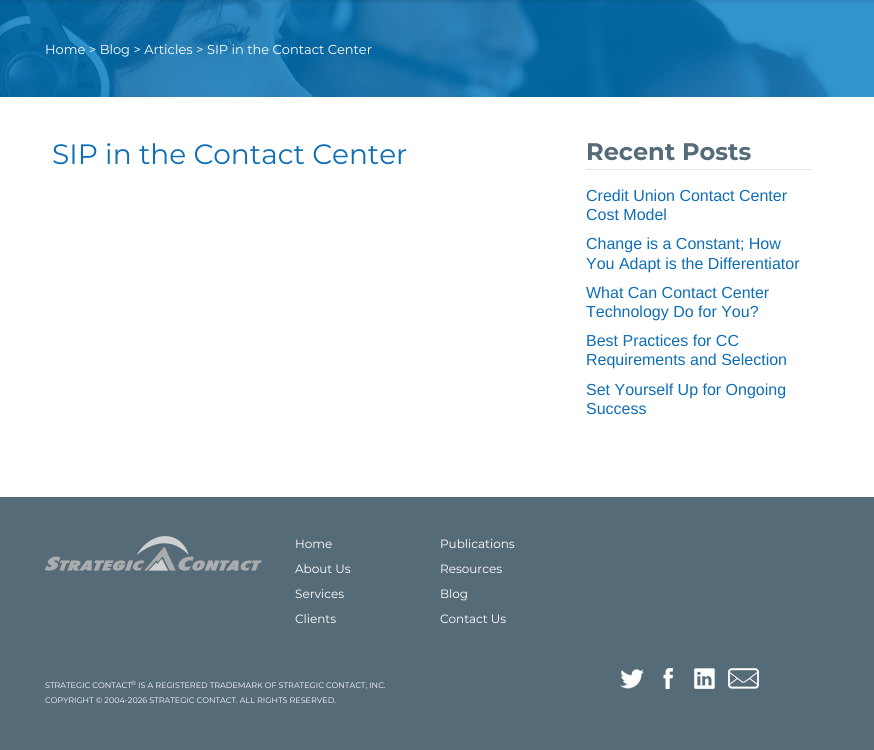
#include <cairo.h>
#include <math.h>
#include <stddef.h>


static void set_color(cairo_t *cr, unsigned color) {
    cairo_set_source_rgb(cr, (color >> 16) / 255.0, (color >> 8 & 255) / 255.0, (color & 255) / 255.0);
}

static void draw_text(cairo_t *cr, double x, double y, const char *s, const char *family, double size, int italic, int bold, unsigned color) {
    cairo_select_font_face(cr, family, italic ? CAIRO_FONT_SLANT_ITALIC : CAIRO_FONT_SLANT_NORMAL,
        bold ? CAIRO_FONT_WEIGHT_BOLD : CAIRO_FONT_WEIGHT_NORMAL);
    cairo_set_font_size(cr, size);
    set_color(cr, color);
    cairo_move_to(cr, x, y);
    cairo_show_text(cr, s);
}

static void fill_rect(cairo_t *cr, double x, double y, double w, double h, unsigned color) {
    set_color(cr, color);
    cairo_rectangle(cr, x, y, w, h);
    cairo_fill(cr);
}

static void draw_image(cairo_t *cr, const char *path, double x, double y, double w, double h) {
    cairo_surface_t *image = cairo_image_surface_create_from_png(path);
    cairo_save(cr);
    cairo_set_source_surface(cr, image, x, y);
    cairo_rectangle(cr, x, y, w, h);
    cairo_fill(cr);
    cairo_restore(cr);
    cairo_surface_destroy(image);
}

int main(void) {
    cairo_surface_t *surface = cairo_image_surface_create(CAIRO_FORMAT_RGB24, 874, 750);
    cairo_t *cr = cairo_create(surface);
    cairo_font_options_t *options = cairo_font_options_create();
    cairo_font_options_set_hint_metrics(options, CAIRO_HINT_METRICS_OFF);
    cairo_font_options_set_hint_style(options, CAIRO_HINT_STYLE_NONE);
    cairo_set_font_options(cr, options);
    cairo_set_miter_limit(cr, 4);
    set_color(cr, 0xFFFFFF);
    cairo_paint(cr);
    draw_image(cr, "assets/img1.png", 0, 0, 874, 97);
    draw_text(cr, 45, 54, "Home > Blog > Articles > SIP in the Contact Center", "Montserrat", 13, 0, 0, 0xFFFFFF);
    draw_text(cr, 52, 164, "SIP in the Contact Center", "Montserrat", 28, 0, 0, 0x0D6EB6);
    fill_rect(cr, 586, 169, 226, 1, 0xE5E5E5);
    draw_text(cr, 586, 160, "Recent Posts", "Montserrat", 24, 0, 1, 0x556B78);
    draw_text(cr, 586, 201, "Credit Union Contact Center", "Liberation Sans", 16, 0, 0, 0x0D6EB6);
    draw_text(cr, 586, 220, "Cost Model", "Liberation Sans", 16, 0, 0, 0x0D6EB6);
    draw_text(cr, 586, 249, "Change is a Constant; How", "Liberation Sans", 16, 0, 0, 0x0D6EB6);
    draw_text(cr, 586, 269, "You Adapt is the Differentiator", "Liberation Sans", 16, 0, 0, 0x0D6EB6);
    draw_text(cr, 586, 298, "What Can Contact Center", "Liberation Sans", 16, 0, 0, 0x0D6EB6);
    draw_text(cr, 586, 317, "Technology Do for You?", "Liberation Sans", 16, 0, 0, 0x0D6EB6);
    draw_text(cr, 586, 346, "Best Practices for CC", "Liberation Sans", 16, 0, 0, 0x0D6EB6);
    draw_text(cr, 586, 365, "Requirements and Selection", "Liberation Sans", 16, 0, 0, 0x0D6EB6);
    draw_text(cr, 586, 395, "Set Yourself Up for Ongoing", "Liberation Sans", 16, 0, 0, 0x0D6EB6);
    draw_text(cr, 586, 414, "Success", "Liberation Sans", 16, 0, 0, 0x0D6EB6);
    fill_rect(cr, 0, 497, 874, 253, 0x556B78);
    draw_image(cr, "assets/img2.png", 45, 536, 217, 35);
    draw_text(cr, 295, 548, "Home", "Montserrat", 12, 0, 0, 0xFFFFFF);
    draw_text(cr, 295, 573, "About Us", "Montserrat", 12, 0, 0, 0xFFFFFF);
    draw_text(cr, 295, 598, "Services", "Montserrat", 12, 0, 0, 0xFFFFFF);
    draw_text(cr, 295, 623, "Clients", "Montserrat", 12, 0, 0, 0xFFFFFF);
    draw_text(cr, 440, 548, "Publications", "Montserrat", 12, 0, 0, 0xFFFFFF);
    draw_text(cr, 440, 573, "Resources", "Montserrat", 12, 0, 0, 0xFFFFFF);
    draw_text(cr, 440, 598, "Blog", "Montserrat", 12, 0, 0, 0xFFFFFF);
    draw_text(cr, 440, 623, "Contact Us", "Montserrat", 12, 0, 0, 0xFFFFFF);
    draw_text(cr, 45, 688, "STRATEGIC CONTACT", "Montserrat", 8, 0, 0, 0xFFFFFF);
    draw_text(cr, 131, 685, "®", "Montserrat", 6, 0, 0, 0xFFFFFF);
    draw_text(cr, 138, 688, "IS A REGISTERED TRADEMARK OF STRATEGIC CONTACT, INC.", "Montserrat", 8, 0, 0, 0xFFFFFF);
    draw_text(cr, 45, 703, "COPYRIGHT © 2004-2026 STRATEGIC CONTACT. ALL RIGHTS RESERVED.", "Montserrat", 8, 0, 0, 0xFFFFFF);
    draw_image(cr, "assets/img3.png", 620, 668, 24, 21);
    draw_image(cr, "assets/img4.png", 657, 668, 23, 21);
    draw_image(cr, "assets/img5.png", 692, 668, 24, 21);
    draw_image(cr, "assets/img6.png", 728, 668, 31, 21);
    cairo_surface_write_to_png(surface, "output.png");
    cairo_font_options_destroy(options);
    cairo_destroy(cr);
    cairo_surface_destroy(surface);
    return 0;
}
